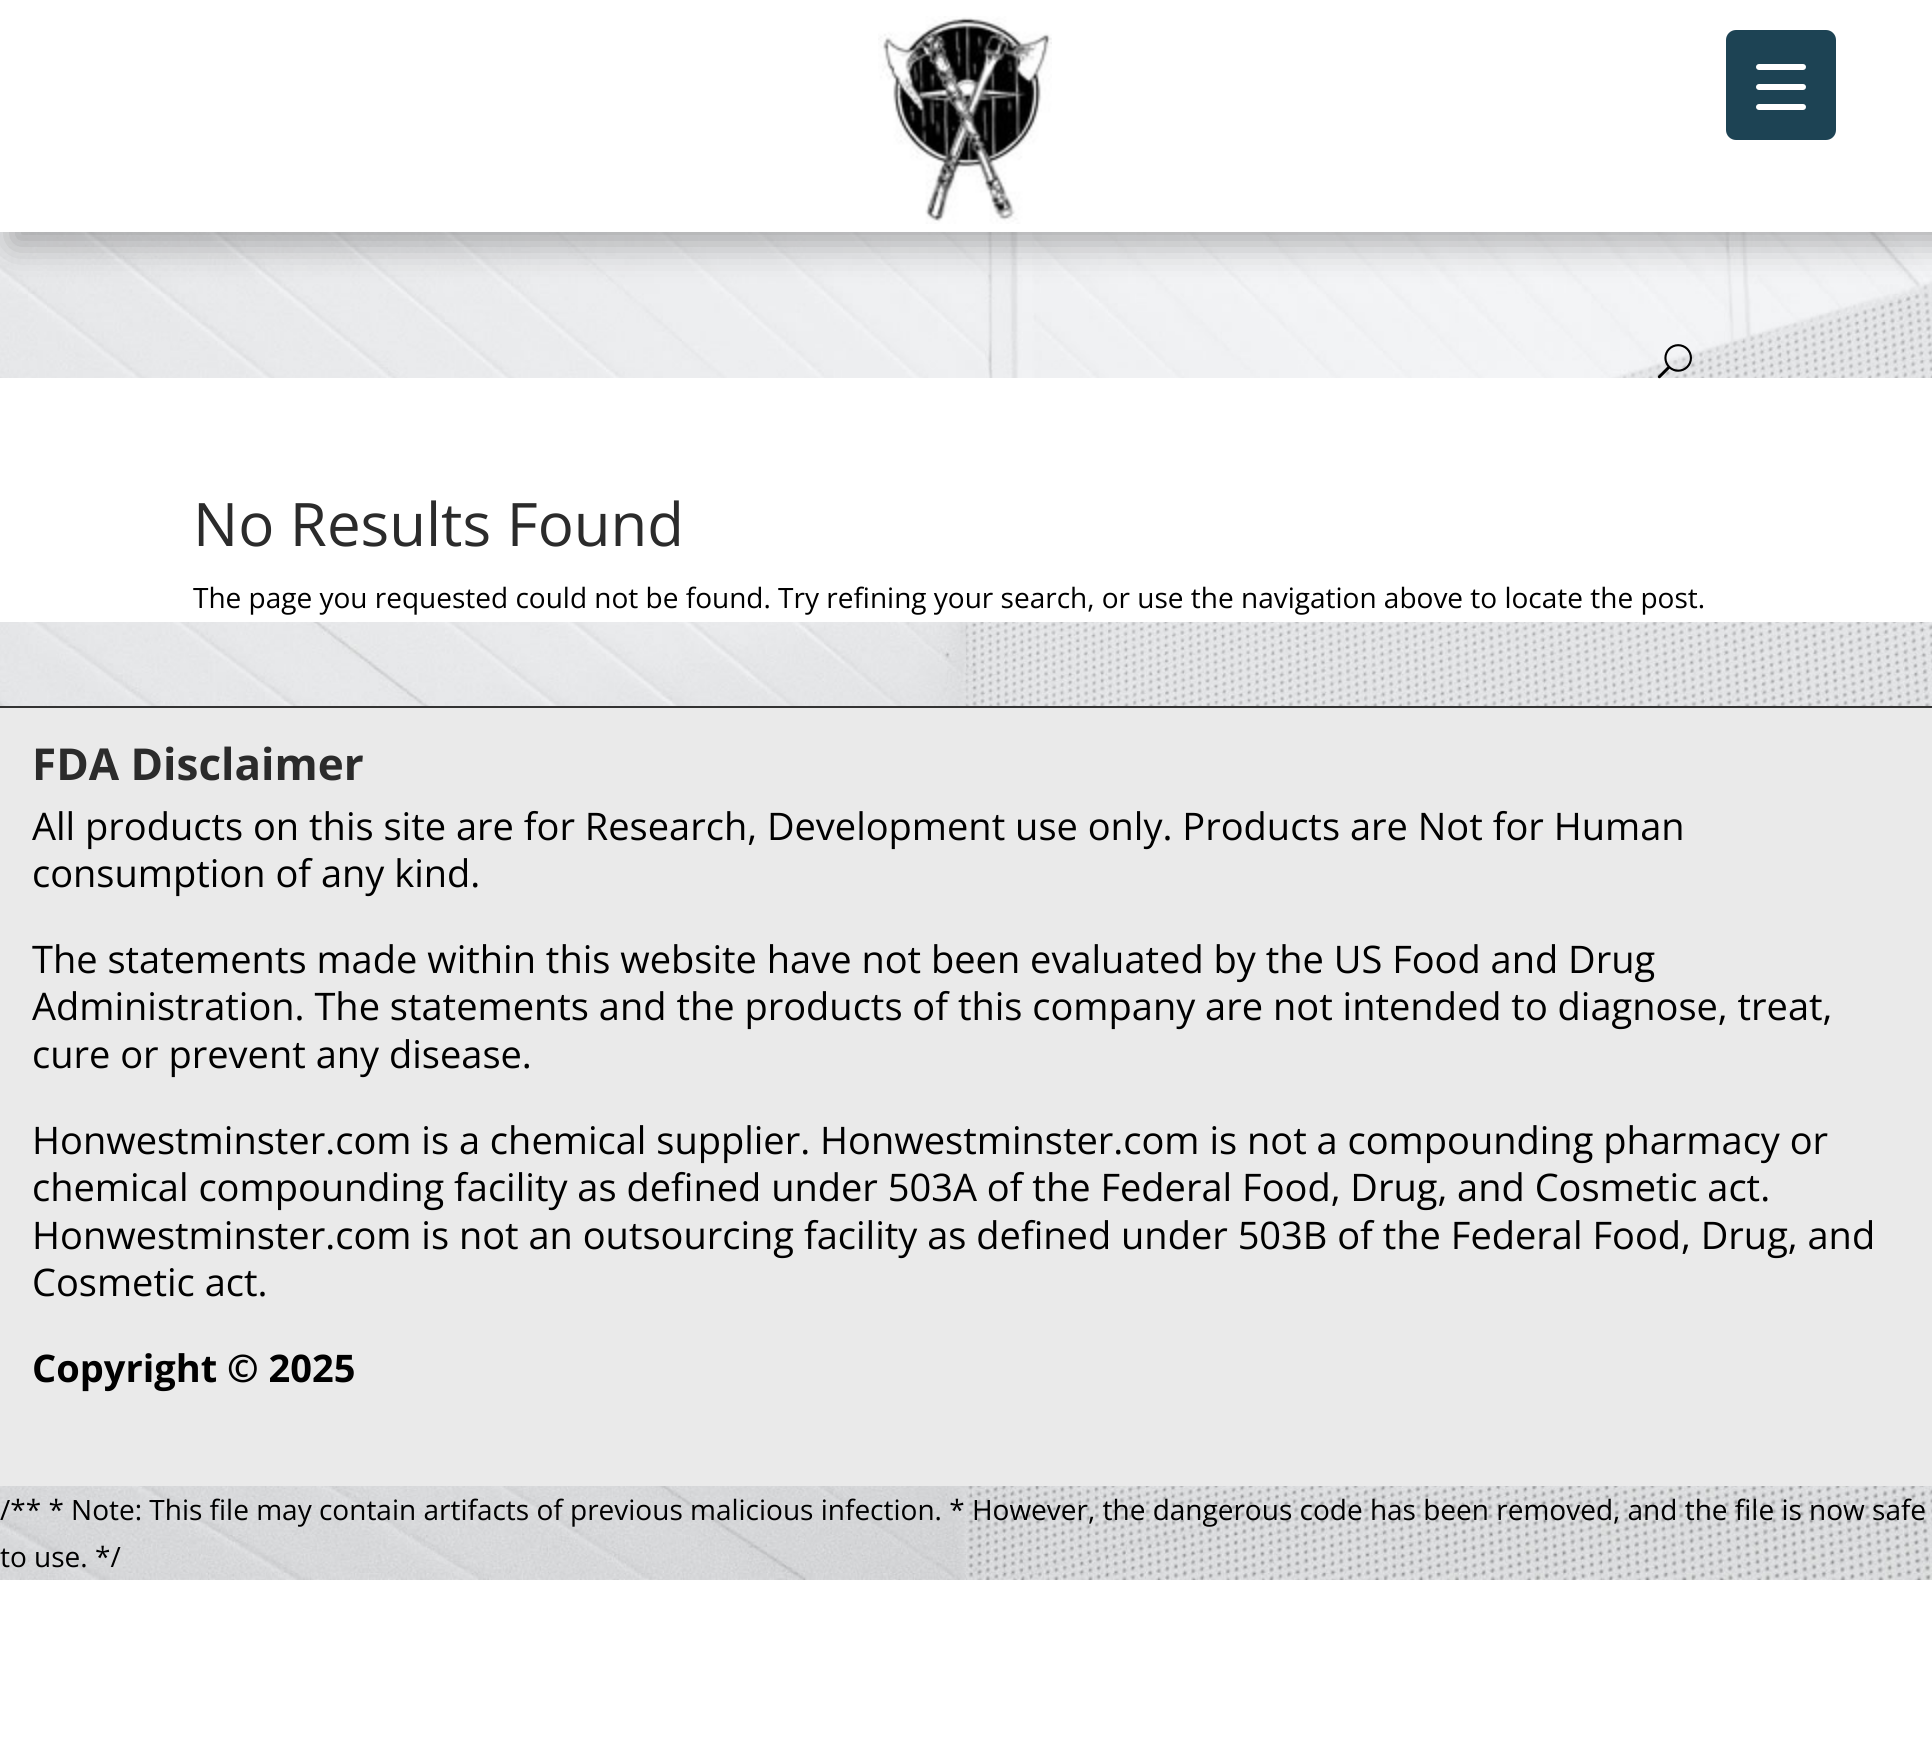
#include <cairo.h>
#include <math.h>
#include <stddef.h>


static void set_color(cairo_t *cr, unsigned color) {
    cairo_set_source_rgb(cr, (color >> 16) / 255.0, (color >> 8 & 255) / 255.0, (color & 255) / 255.0);
}

static void draw_text(cairo_t *cr, double x, double y, const char *s, const char *family, double size, int italic, int bold, unsigned color) {
    cairo_select_font_face(cr, family, italic ? CAIRO_FONT_SLANT_ITALIC : CAIRO_FONT_SLANT_NORMAL,
        bold ? CAIRO_FONT_WEIGHT_BOLD : CAIRO_FONT_WEIGHT_NORMAL);
    cairo_set_font_size(cr, size);
    set_color(cr, color);
    cairo_move_to(cr, x, y);
    cairo_show_text(cr, s);
}

static void fill_rect(cairo_t *cr, double x, double y, double w, double h, unsigned color) {
    set_color(cr, color);
    cairo_rectangle(cr, x, y, w, h);
    cairo_fill(cr);
}

static void rounded_rect(cairo_t *cr, double x, double y, double w, double h, double r) {
    cairo_new_sub_path(cr);
    cairo_arc(cr, x + w - r, y + h - r, r, 0, M_PI / 2);
    cairo_arc(cr, x + r, y + h - r, r, M_PI / 2, M_PI);
    cairo_arc(cr, x + r, y + r, r, M_PI, 1.5 * M_PI);
    cairo_arc(cr, x + w - r, y + r, r, 1.5 * M_PI, 2 * M_PI);
    cairo_close_path(cr);
}

static void draw_shadow(cairo_t *cr, double x, double y, double w, double h, double r, double blur, double alpha) {
    cairo_push_group_with_content(cr, CAIRO_CONTENT_ALPHA);
    cairo_set_operator(cr, CAIRO_OPERATOR_SOURCE);
    for (int i = 15; i >= -15 && fmin(w, h) + blur * i / 3 > 0; i -= 2) {
        double e = blur * i / 6;
        cairo_set_source_rgba(cr, 0, 0, 0, alpha * erfc((i - 1) / 8.5) / 2);
        rounded_rect(cr, x - e, y - e, w + 2 * e, h + 2 * e, fmax(0, fmin(r + e + blur * .6, fmin(w, h) / 2 + e)));
        cairo_fill(cr);
    }
    cairo_pattern_t *soft = cairo_pop_group(cr);
    cairo_mask(cr, soft);
    cairo_pattern_destroy(soft);
}

static void draw_image(cairo_t *cr, const char *path, double x, double y, double w, double h) {
    cairo_surface_t *image = cairo_image_surface_create_from_png(path);
    cairo_save(cr);
    cairo_set_source_surface(cr, image, x, y);
    cairo_rectangle(cr, x, y, w, h);
    cairo_fill(cr);
    cairo_restore(cr);
    cairo_surface_destroy(image);
}

int main(void) {
    cairo_surface_t *surface = cairo_image_surface_create(CAIRO_FORMAT_RGB24, 1932, 1754);
    cairo_t *cr = cairo_create(surface);
    cairo_font_options_t *options = cairo_font_options_create();
    cairo_font_options_set_hint_metrics(options, CAIRO_HINT_METRICS_OFF);
    cairo_font_options_set_hint_style(options, CAIRO_HINT_STYLE_NONE);
    cairo_set_font_options(cr, options);
    cairo_set_miter_limit(cr, 4);
    set_color(cr, 0xFFFFFF);
    cairo_paint(cr);
    draw_image(cr, "assets/img1.png", 0, 232, 1932, 1348);
    set_color(cr, 0x000000);
    draw_shadow(cr, 12, 12, 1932, 232, 0, 18, 0.3);
    fill_rect(cr, 0, 0, 1932, 232, 0xFFFFFF);
    set_color(cr, 0x1D4354);
    rounded_rect(cr, 1726, 30, 110, 110, 10);
    cairo_fill(cr);
    set_color(cr, 0xFFFFFF);
    rounded_rect(cr, 1756, 84, 50, 6, 3);
    cairo_fill(cr);
    rounded_rect(cr, 1756, 64, 50, 6, 3);
    cairo_fill(cr);
    rounded_rect(cr, 1756, 104, 50, 6, 3);
    cairo_fill(cr);
    draw_image(cr, "assets/img2.png", 878, 16, 174, 208);
    fill_rect(cr, 0, 378, 1932, 244, 0xFFFFFF);
    draw_image(cr, "assets/img3.png", 1657, 344, 35, 35);
    draw_text(cr, 193, 546, "No Results Found", "Open Sans", 60, 0, 0, 0x2B2B2B);
    draw_text(cr, 193, 608, "The page you requested could not be found. Try refining your search, or use the navigation above to locate the post.", "Open Sans", 28, 0, 0, 0x000000);
    fill_rect(cr, 0, 708, 1932, 778, 0xEAEAEA);
    fill_rect(cr, 0, 706, 1932, 2, 0x333333);
    draw_text(cr, 32, 780, "FDA Disclaimer", "Open Sans", 44, 0, 1, 0x2B2B2B);
    draw_text(cr, 32, 840, "All products on this site are for Research, Development use only. Products are Not for Human", "Open Sans", 38, 0, 0, 0x000000);
    draw_text(cr, 32, 887, "consumption of any kind.", "Open Sans", 38, 0, 0, 0x000000);
    draw_text(cr, 32, 973, "The statements made within this website have not been evaluated by the US Food and Drug", "Open Sans", 38, 0, 0, 0x000000);
    draw_text(cr, 32, 1020, "Administration. The statements and the products of this company are not intended to diagnose, treat,", "Open Sans", 38, 0, 0, 0x000000);
    draw_text(cr, 32, 1068, "cure or prevent any disease.", "Open Sans", 38, 0, 0, 0x000000);
    draw_text(cr, 32, 1154, "Honwestminster.com is a chemical supplier. Honwestminster.com is not a compounding pharmacy or", "Open Sans", 38, 0, 0, 0x000000);
    draw_text(cr, 32, 1201, "chemical compounding facility as defined under 503A of the Federal Food, Drug, and Cosmetic act.", "Open Sans", 38, 0, 0, 0x000000);
    draw_text(cr, 32, 1249, "Honwestminster.com is not an outsourcing facility as defined under 503B of the Federal Food, Drug, and", "Open Sans", 38, 0, 0, 0x000000);
    draw_text(cr, 32, 1296, "Cosmetic act.", "Open Sans", 38, 0, 0, 0x000000);
    draw_text(cr, 32, 1382, "Copyright © 2025", "Open Sans", 38, 0, 1, 0x000000);
    draw_text(cr, 0, 1520, "/** * Note: This file may contain artifacts of previous malicious infection. * However, the dangerous code has been removed, and the file is now safe", "Open Sans", 28, 0, 0, 0x000000);
    draw_text(cr, 0, 1567, "to use. */", "Open Sans", 28, 0, 0, 0x000000);
    cairo_surface_write_to_png(surface, "output.png");
    cairo_font_options_destroy(options);
    cairo_destroy(cr);
    cairo_surface_destroy(surface);
    return 0;
}
